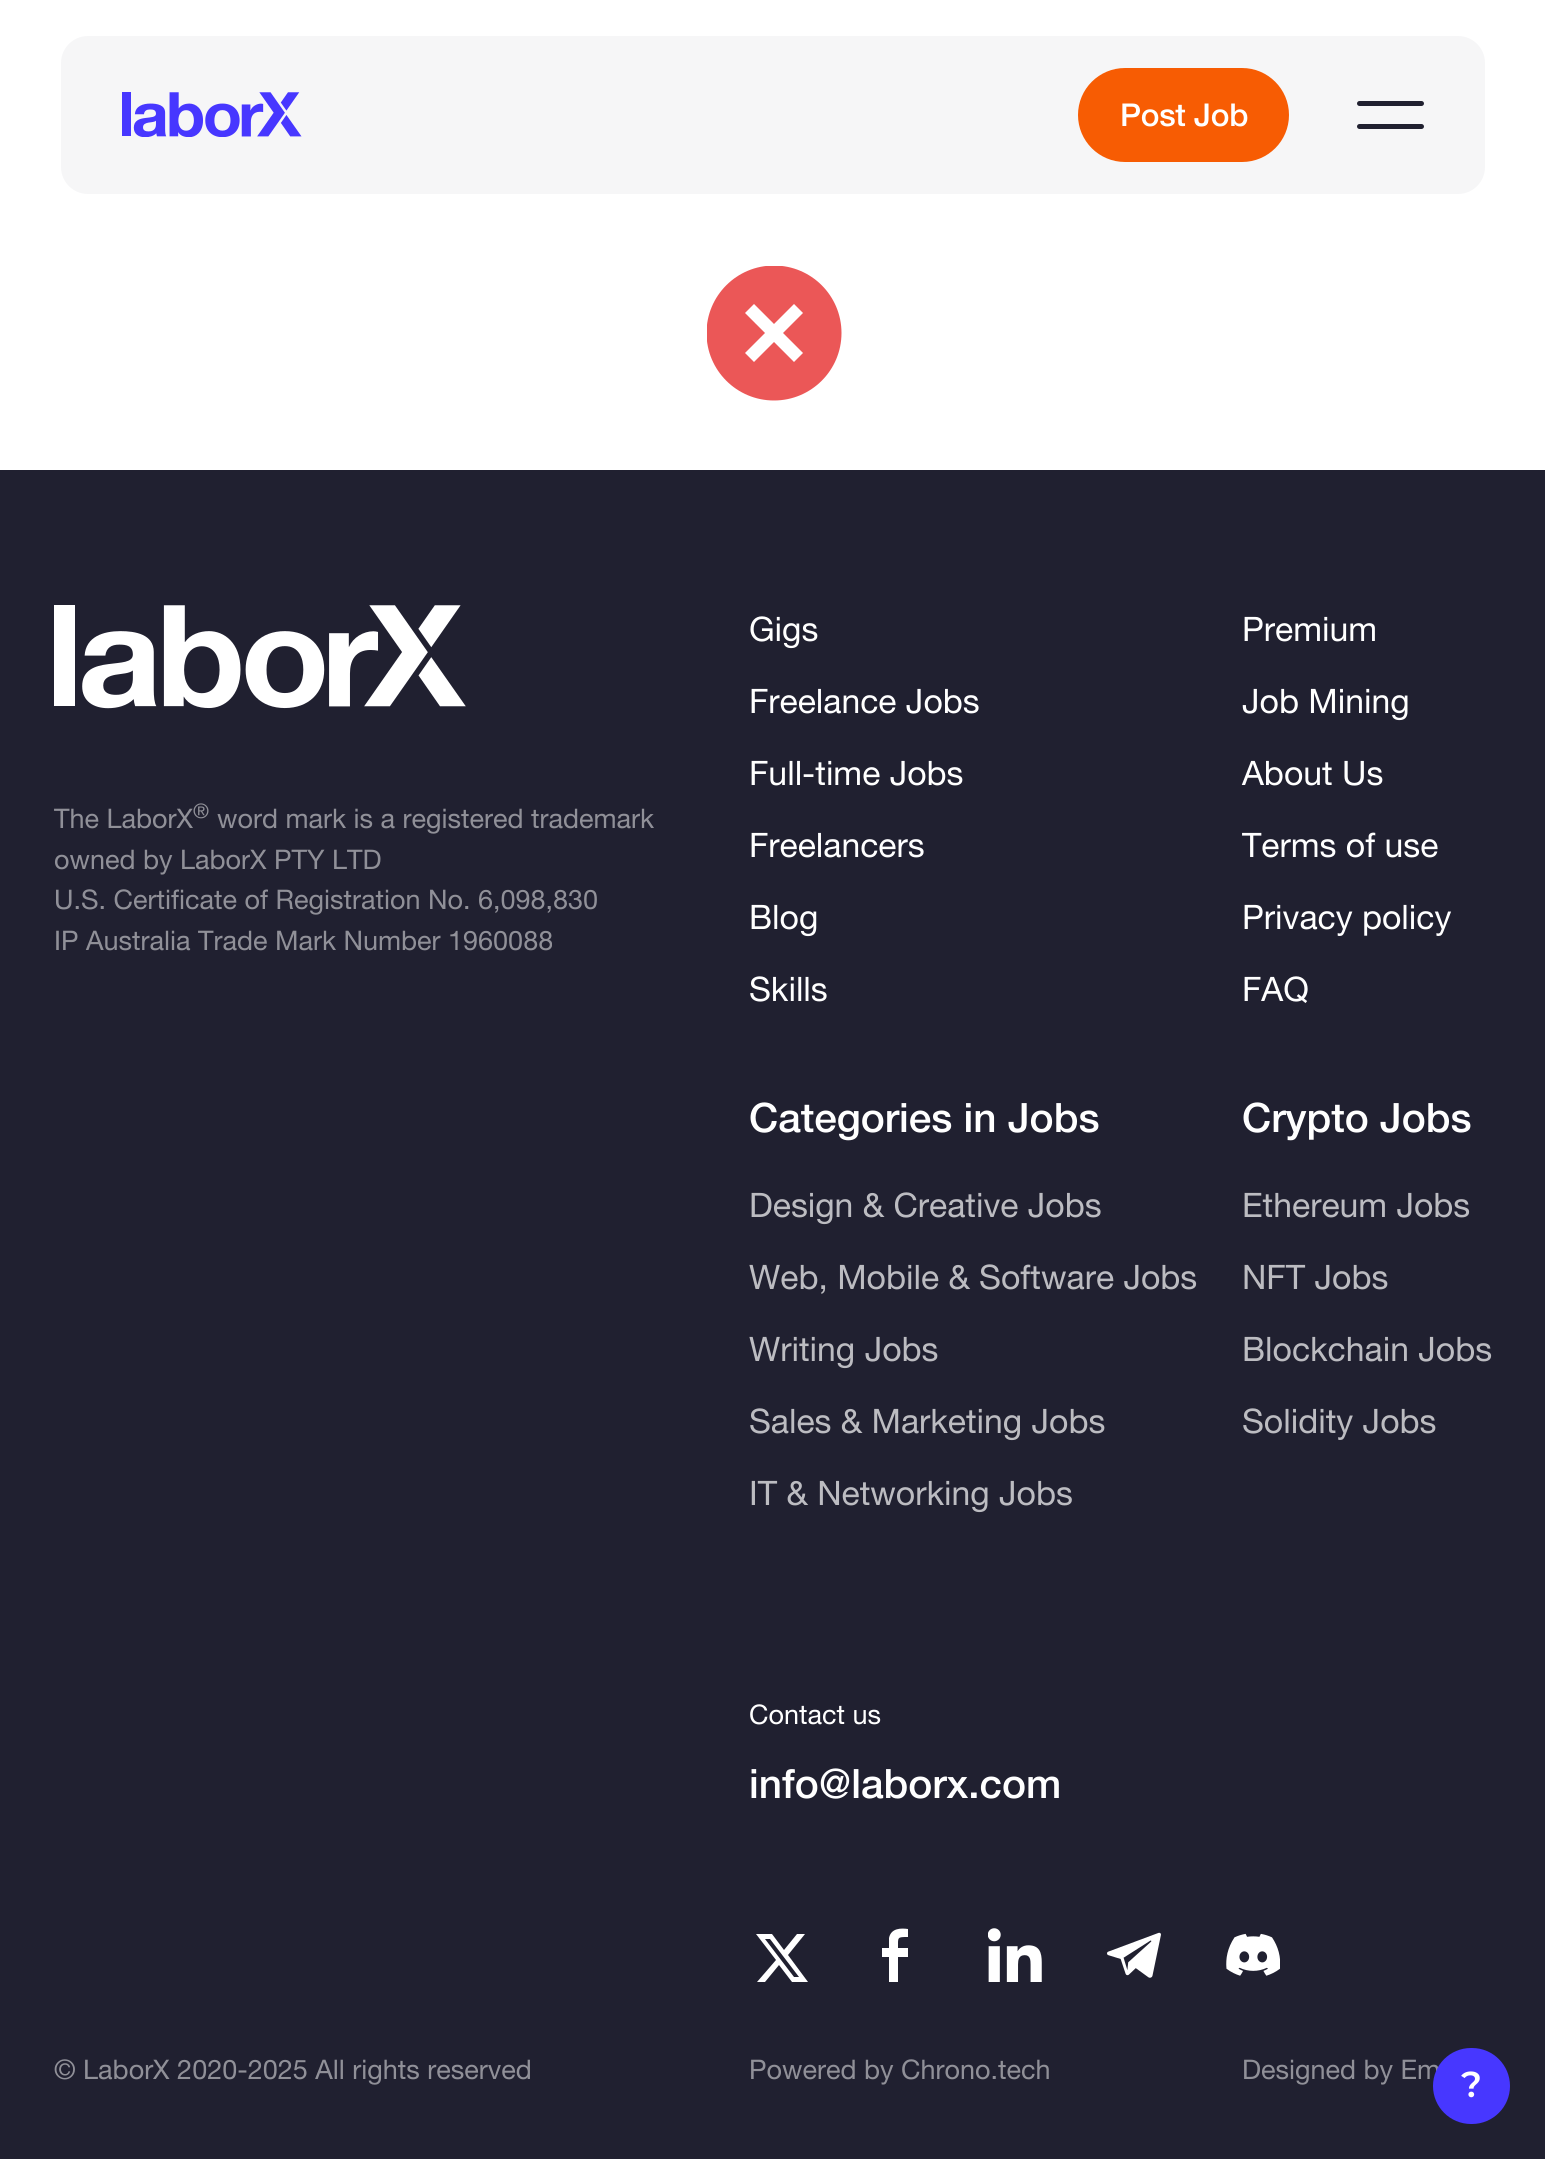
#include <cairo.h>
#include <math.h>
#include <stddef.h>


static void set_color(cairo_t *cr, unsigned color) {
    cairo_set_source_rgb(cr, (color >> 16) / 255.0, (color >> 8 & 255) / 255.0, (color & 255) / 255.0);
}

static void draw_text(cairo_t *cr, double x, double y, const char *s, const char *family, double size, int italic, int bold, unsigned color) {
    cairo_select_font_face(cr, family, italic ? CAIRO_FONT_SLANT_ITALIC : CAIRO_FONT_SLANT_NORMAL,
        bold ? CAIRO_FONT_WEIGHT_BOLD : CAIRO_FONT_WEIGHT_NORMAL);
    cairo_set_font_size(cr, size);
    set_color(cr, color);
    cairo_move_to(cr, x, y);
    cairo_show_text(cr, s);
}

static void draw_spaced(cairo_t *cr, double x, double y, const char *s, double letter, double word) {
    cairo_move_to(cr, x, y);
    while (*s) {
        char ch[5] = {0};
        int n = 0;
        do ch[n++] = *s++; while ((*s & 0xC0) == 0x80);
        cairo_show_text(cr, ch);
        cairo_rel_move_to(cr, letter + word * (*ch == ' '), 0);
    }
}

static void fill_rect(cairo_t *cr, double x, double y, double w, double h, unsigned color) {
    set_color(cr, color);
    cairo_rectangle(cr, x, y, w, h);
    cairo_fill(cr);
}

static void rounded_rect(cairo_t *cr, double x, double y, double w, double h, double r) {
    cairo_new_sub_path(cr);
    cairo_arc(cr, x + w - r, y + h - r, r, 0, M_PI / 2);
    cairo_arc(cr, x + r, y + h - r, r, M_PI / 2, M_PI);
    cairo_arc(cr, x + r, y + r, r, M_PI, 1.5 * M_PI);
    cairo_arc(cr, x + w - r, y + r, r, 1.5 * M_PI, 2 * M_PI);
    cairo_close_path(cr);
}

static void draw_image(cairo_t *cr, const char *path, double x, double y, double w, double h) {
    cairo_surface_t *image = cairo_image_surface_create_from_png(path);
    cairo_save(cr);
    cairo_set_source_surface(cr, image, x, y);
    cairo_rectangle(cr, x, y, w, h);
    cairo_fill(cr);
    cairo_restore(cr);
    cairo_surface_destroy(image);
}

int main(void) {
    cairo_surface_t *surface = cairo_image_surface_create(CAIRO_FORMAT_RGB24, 1545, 2159);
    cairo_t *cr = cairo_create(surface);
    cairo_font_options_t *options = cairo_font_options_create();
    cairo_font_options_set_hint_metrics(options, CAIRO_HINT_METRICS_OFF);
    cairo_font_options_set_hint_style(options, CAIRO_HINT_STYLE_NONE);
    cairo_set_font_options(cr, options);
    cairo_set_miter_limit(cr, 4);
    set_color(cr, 0xFFFFFF);
    cairo_paint(cr);
    set_color(cr, 0xF6F6F7);
    rounded_rect(cr, 61, 36, 1424, 158, 27);
    cairo_fill(cr);
    draw_image(cr, "assets/img1.png", 122, 92, 180, 45);
    set_color(cr, 0xF75C03);
    rounded_rect(cr, 1079, 69, 209, 92, 46);
    cairo_fill_preserve(cr);
    cairo_stroke(cr);
    cairo_select_font_face(cr, "Helvetica Neue Medium", CAIRO_FONT_SLANT_NORMAL, CAIRO_FONT_WEIGHT_NORMAL);
    cairo_set_font_size(cr, 31.5);
    set_color(cr, 0xFFFFFF);
    draw_spaced(cr, 1120, 126, "Post Job", -0.25, 0);
    set_color(cr, 0x202030);
    rounded_rect(cr, 1357, 101, 67, 5, 2.5);
    cairo_fill(cr);
    rounded_rect(cr, 1357, 124, 67, 5, 2.5);
    cairo_fill(cr);
    cairo_save(cr);
    cairo_rectangle(cr, 707, 266, 135, 135);
    cairo_clip(cr);
    set_color(cr, 0xEB5757);
    cairo_arc(cr, 774, 333, 67.5, 0, 2 * M_PI);
    cairo_fill(cr);
    cairo_restore(cr);
    set_color(cr, 0xFFFFFF);
    cairo_set_fill_rule(cr, CAIRO_FILL_RULE_EVEN_ODD);
    cairo_new_path(cr);
    cairo_move_to(cr, 774, 342);
    cairo_line_to(cr, 754, 362);
    cairo_line_to(cr, 745, 353);
    cairo_line_to(cr, 765, 333);
    cairo_line_to(cr, 745, 313);
    cairo_line_to(cr, 754, 304);
    cairo_line_to(cr, 774, 324);
    cairo_line_to(cr, 794, 304);
    cairo_line_to(cr, 803, 313);
    cairo_line_to(cr, 783, 333);
    cairo_line_to(cr, 803, 353);
    cairo_line_to(cr, 794, 362);
    cairo_close_path(cr);
    cairo_fill(cr);
    fill_rect(cr, 0, 470, 1545, 1689, 0x202030);
    draw_image(cr, "assets/img2.png", 54, 605, 412, 104);
    draw_text(cr, 54, 828, "The LaborX", "Helvetica Neue", 27, 0, 0, 0x909098);
    draw_text(cr, 193, 818, "®", "Helvetica Neue", 20, 0, 0, 0x909098);
    draw_text(cr, 217, 828, "word mark is a registered trademark", "Helvetica Neue", 27, 0, 0, 0x909098);
    draw_text(cr, 54, 869, "owned by LaborX PTY LTD", "Helvetica Neue", 27, 0, 0, 0x909098);
    draw_text(cr, 54, 909, "U.S. Certificate of Registration No. 6,098,830", "Helvetica Neue", 27, 0, 0, 0x909098);
    draw_text(cr, 54, 950, "IP Australia Trade Mark Number 1960088", "Helvetica Neue", 27, 0, 0, 0x909098);
    draw_text(cr, 54, 2079, "© LaborX 2020-2025 All rights reserved", "Helvetica Neue", 27, 0, 0, 0x909098);
    draw_text(cr, 749, 641, "Gigs", "Helvetica Neue", 33.75, 0, 0, 0xFFFFFF);
    draw_text(cr, 749, 713, "Freelance Jobs", "Helvetica Neue", 33.75, 0, 0, 0xFFFFFF);
    draw_text(cr, 749, 785, "Full-time Jobs", "Helvetica Neue", 33.75, 0, 0, 0xFFFFFF);
    draw_text(cr, 749, 857, "Freelancers", "Helvetica Neue", 33.75, 0, 0, 0xFFFFFF);
    draw_text(cr, 749, 929, "Blog", "Helvetica Neue", 33.75, 0, 0, 0xFFFFFF);
    draw_text(cr, 749, 1001, "Skills", "Helvetica Neue", 33.75, 0, 0, 0xFFFFFF);
    draw_text(cr, 749, 1132, "Categories in Jobs", "Helvetica Neue Medium", 40.5, 0, 0, 0xFFFFFF);
    draw_text(cr, 749, 1217, "Design & Creative Jobs", "Helvetica Neue", 33.75, 0, 0, 0xBCBCC1);
    draw_text(cr, 749, 1289, "Web, Mobile & Software Jobs", "Helvetica Neue", 33.75, 0, 0, 0xBCBCC1);
    draw_text(cr, 749, 1361, "Writing Jobs", "Helvetica Neue", 33.75, 0, 0, 0xBCBCC1);
    draw_text(cr, 749, 1433, "Sales & Marketing Jobs", "Helvetica Neue", 33.75, 0, 0, 0xBCBCC1);
    draw_text(cr, 749, 1505, "IT & Networking Jobs", "Helvetica Neue", 33.75, 0, 0, 0xBCBCC1);
    draw_text(cr, 1242, 641, "Premium", "Helvetica Neue", 33.75, 0, 0, 0xFFFFFF);
    draw_text(cr, 1242, 713, "Job Mining", "Helvetica Neue", 33.75, 0, 0, 0xFFFFFF);
    draw_text(cr, 1242, 785, "About Us", "Helvetica Neue", 33.75, 0, 0, 0xFFFFFF);
    draw_text(cr, 1242, 857, "Terms of use", "Helvetica Neue", 33.75, 0, 0, 0xFFFFFF);
    draw_text(cr, 1242, 929, "Privacy policy", "Helvetica Neue", 33.75, 0, 0, 0xFFFFFF);
    draw_text(cr, 1242, 1001, "FAQ", "Helvetica Neue", 33.75, 0, 0, 0xFFFFFF);
    draw_text(cr, 1242, 1132, "Crypto Jobs", "Helvetica Neue Medium", 40.5, 0, 0, 0xFFFFFF);
    draw_text(cr, 1242, 1217, "Ethereum Jobs", "Helvetica Neue", 33.75, 0, 0, 0xBCBCC1);
    draw_text(cr, 1242, 1289, "NFT Jobs", "Helvetica Neue", 33.75, 0, 0, 0xBCBCC1);
    draw_text(cr, 1242, 1361, "Blockchain Jobs", "Helvetica Neue", 33.75, 0, 0, 0xBCBCC1);
    draw_text(cr, 1242, 1433, "Solidity Jobs", "Helvetica Neue", 33.75, 0, 0, 0xBCBCC1);
    draw_text(cr, 1242, 2079, "Designed by Em", "Helvetica Neue", 27, 0, 0, 0x909098);
    draw_text(cr, 749, 1724, "Contact us", "Helvetica Neue", 27, 0, 0, 0xFFFFFF);
    draw_text(cr, 749, 1798, "info@laborx.com", "Helvetica Neue Medium", 40.5, 0, 0, 0xFFFFFF);
    cairo_set_fill_rule(cr, CAIRO_FILL_RULE_WINDING);
    cairo_new_path(cr);
    cairo_move_to(cr, 797, 1934);
    cairo_line_to(cr, 805, 1934);
    cairo_line_to(cr, 788, 1955);
    cairo_line_to(cr, 808, 1982);
    cairo_line_to(cr, 792, 1982);
    cairo_line_to(cr, 779, 1965);
    cairo_line_to(cr, 765, 1982);
    cairo_line_to(cr, 757, 1982);
    cairo_line_to(cr, 776, 1960);
    cairo_line_to(cr, 756, 1934);
    cairo_line_to(cr, 772, 1934);
    cairo_line_to(cr, 784, 1950);
    cairo_close_path(cr);
    cairo_move_to(cr, 794, 1977);
    cairo_line_to(cr, 799, 1977);
    cairo_line_to(cr, 770, 1939);
    cairo_line_to(cr, 765, 1939);
    cairo_close_path(cr);
    cairo_fill(cr);
    cairo_new_path(cr);
    cairo_move_to(cr, 889, 1982);
    cairo_line_to(cr, 889, 1957);
    cairo_line_to(cr, 882, 1957);
    cairo_line_to(cr, 882, 1948);
    cairo_line_to(cr, 889, 1948);
    cairo_line_to(cr, 889, 1938);
    cairo_curve_to(cr, 891, 1928, 901, 1928, 908, 1929);
    cairo_line_to(cr, 908, 1937);
    cairo_curve_to(cr, 897, 1937, 898, 1937, 898, 1948);
    cairo_line_to(cr, 908, 1948);
    cairo_line_to(cr, 908, 1957);
    cairo_line_to(cr, 898, 1957);
    cairo_line_to(cr, 898, 1982);
    cairo_close_path(cr);
    cairo_fill(cr);
    draw_image(cr, "assets/img3.png", 988, 1928, 54, 54);
    draw_image(cr, "assets/img4.png", 1107, 1932, 54, 46);
    draw_image(cr, "assets/img5.png", 1226, 1933, 54, 43);
    draw_text(cr, 749, 2079, "Powered by Chrono.tech", "Helvetica Neue", 27, 0, 0, 0x909098);
    set_color(cr, 0x4737FF);
    rounded_rect(cr, 1433, 2048, 77, 76, 38);
    cairo_fill(cr);
    draw_text(cr, 1461, 2097, "?", "Montserrat SemiBold", 36, 0, 0, 0xFFFFFF);
    cairo_surface_write_to_png(surface, "output.png");
    cairo_font_options_destroy(options);
    cairo_destroy(cr);
    cairo_surface_destroy(surface);
    return 0;
}
